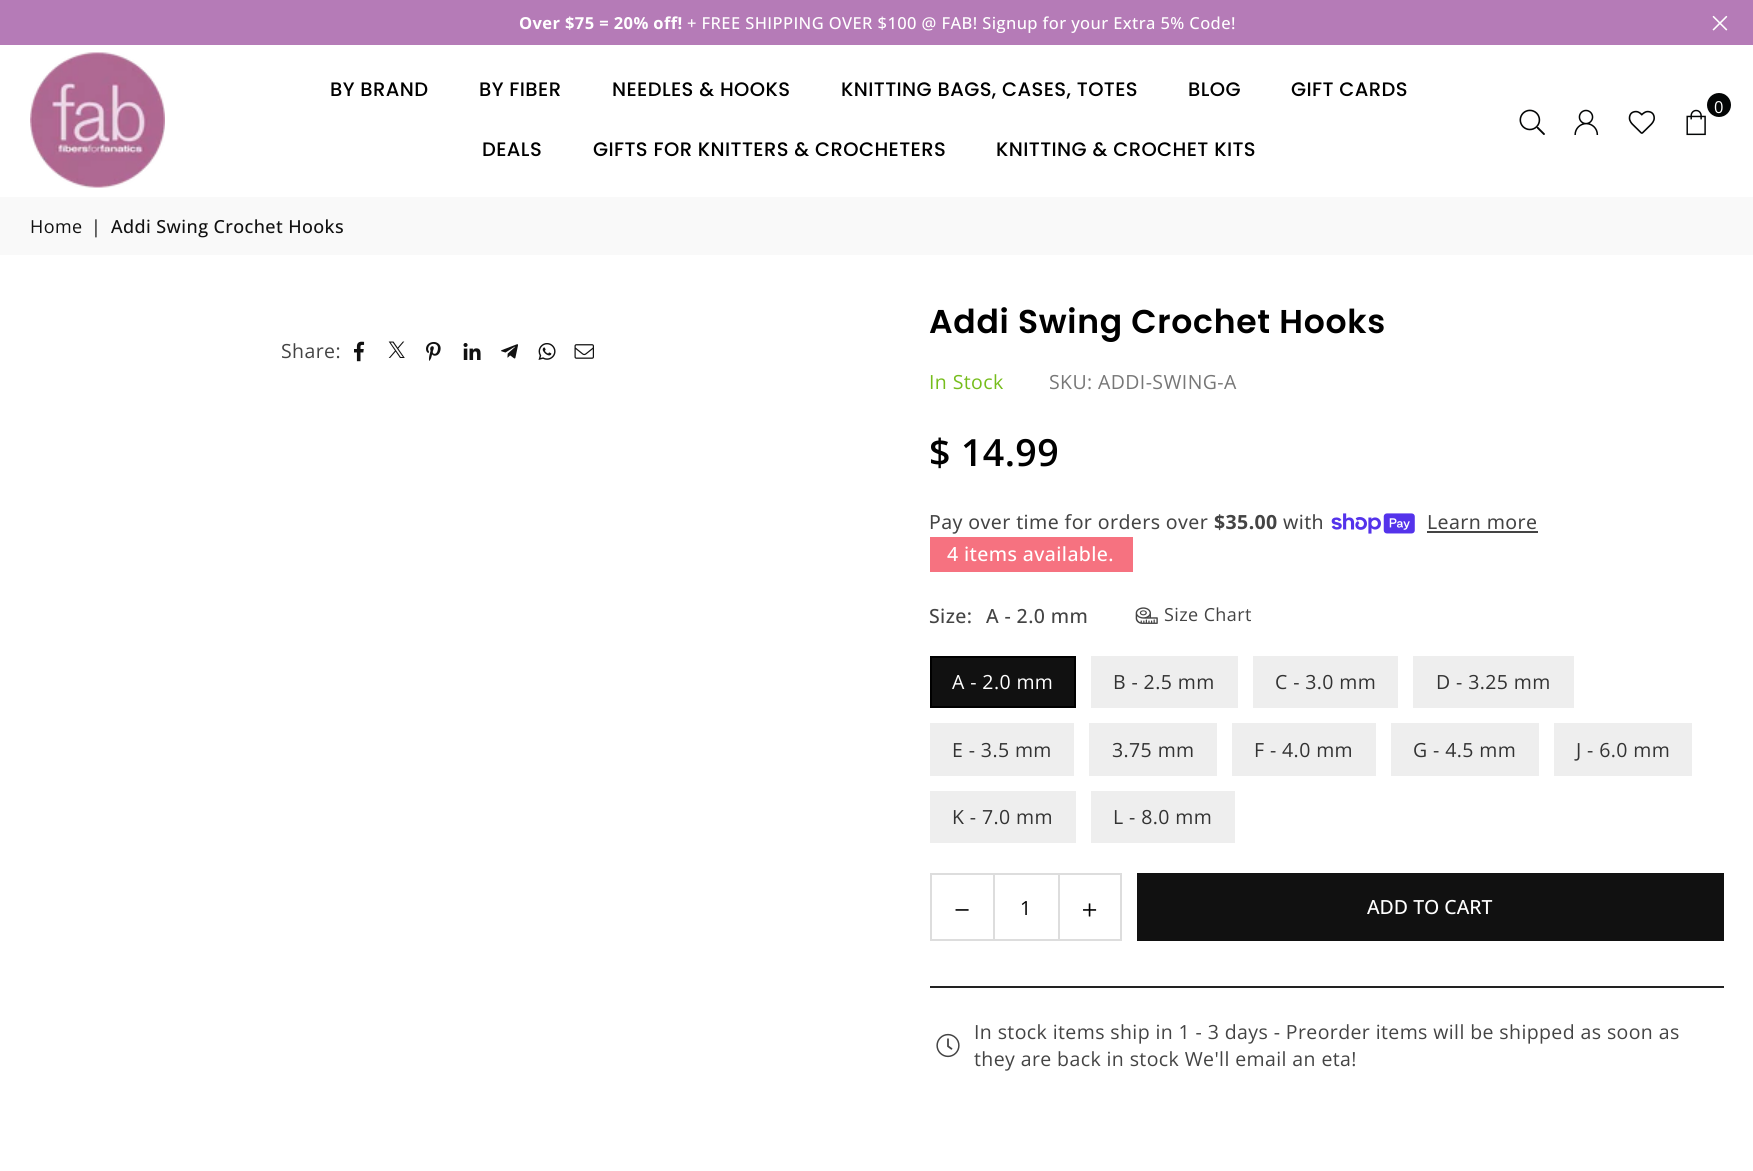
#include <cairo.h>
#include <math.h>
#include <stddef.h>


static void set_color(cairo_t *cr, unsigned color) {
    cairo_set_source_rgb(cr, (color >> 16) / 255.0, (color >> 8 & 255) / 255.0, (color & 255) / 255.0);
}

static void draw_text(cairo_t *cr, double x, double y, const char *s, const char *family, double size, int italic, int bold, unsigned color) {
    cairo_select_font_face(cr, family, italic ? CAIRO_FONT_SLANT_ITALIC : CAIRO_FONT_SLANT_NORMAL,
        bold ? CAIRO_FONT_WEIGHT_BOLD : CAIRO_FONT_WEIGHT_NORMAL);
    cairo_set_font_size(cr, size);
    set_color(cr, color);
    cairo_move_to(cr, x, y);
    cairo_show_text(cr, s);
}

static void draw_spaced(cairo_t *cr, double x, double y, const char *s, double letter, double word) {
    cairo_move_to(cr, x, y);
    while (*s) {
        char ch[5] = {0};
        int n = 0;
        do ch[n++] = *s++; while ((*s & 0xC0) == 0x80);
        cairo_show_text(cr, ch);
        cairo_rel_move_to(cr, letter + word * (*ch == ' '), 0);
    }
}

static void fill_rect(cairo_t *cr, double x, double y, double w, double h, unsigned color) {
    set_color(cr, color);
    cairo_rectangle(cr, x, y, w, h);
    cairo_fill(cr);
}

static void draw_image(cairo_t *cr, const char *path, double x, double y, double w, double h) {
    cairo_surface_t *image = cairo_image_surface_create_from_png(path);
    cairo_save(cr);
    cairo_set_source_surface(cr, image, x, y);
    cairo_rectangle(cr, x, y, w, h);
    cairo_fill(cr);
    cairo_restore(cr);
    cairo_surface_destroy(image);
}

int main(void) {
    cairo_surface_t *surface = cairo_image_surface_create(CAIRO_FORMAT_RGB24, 1753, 1171);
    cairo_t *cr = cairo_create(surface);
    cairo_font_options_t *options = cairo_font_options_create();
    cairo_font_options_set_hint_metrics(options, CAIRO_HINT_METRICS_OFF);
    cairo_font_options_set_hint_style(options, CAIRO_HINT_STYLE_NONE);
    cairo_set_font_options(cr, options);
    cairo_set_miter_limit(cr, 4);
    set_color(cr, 0xFFFFFF);
    cairo_paint(cr);
    fill_rect(cr, 0, 0, 1753, 45, 0xB57BB7);
    cairo_select_font_face(cr, "Open Sans", CAIRO_FONT_SLANT_NORMAL, CAIRO_FONT_WEIGHT_BOLD);
    cairo_set_font_size(cr, 16.5);
    set_color(cr, 0xFFFFFF);
    draw_spaced(cr, 519, 29, "Over $75 = 20% off!", 0.4, 0);
    cairo_select_font_face(cr, "Open Sans Medium", CAIRO_FONT_SLANT_NORMAL, CAIRO_FONT_WEIGHT_NORMAL);
    draw_spaced(cr, 687, 29, "+ FREE SHIPPING OVER $100 @ FAB! Signup for your Extra 5% Code!", 0.4, 0);
    draw_image(cr, "assets/img1.png", 1712, 15, 16, 16);
    draw_image(cr, "assets/img2.png", 30, 52, 135, 136);
    cairo_select_font_face(cr, "Poppins Medium", CAIRO_FONT_SLANT_NORMAL, CAIRO_FONT_WEIGHT_NORMAL);
    cairo_set_font_size(cr, 19.5);
    set_color(cr, 0x000000);
    draw_spaced(cr, 330, 96, "BY BRAND", 0.4, 0);
    draw_spaced(cr, 479, 96, "BY FIBER", 0.4, 0);
    draw_spaced(cr, 612, 96, "NEEDLES & HOOKS", 0.4, 0);
    draw_spaced(cr, 841, 96, "KNITTING BAGS, CASES, TOTES", 0.4, 0);
    draw_spaced(cr, 1188, 96, "BLOG", 0.4, 0);
    draw_spaced(cr, 1291, 96, "GIFT CARDS", 0.4, 0);
    draw_spaced(cr, 482, 156, "DEALS", 0.4, 0);
    draw_spaced(cr, 593, 156, "GIFTS FOR KNITTERS & CROCHETERS", 0.4, 0);
    draw_spaced(cr, 996, 156, "KNITTING & CROCHET KITS", 0.4, 0);
    set_color(cr, 0x030505);
    cairo_new_path(cr);
    cairo_arc(cr, 1719, 105, 12, 0, 2 * M_PI);
    cairo_fill(cr);
    cairo_select_font_face(cr, "Open Sans", CAIRO_FONT_SLANT_NORMAL, CAIRO_FONT_WEIGHT_NORMAL);
    cairo_set_font_size(cr, 16.5);
    set_color(cr, 0xFFFFFF);
    draw_spaced(cr, 1714, 113, "0", 0.4, 0);
    draw_image(cr, "assets/img3.png", 1686, 109, 20, 27);
    draw_image(cr, "assets/img4.png", 1519, 109, 26, 26);
    draw_image(cr, "assets/img5.png", 1574, 109, 25, 26);
    draw_image(cr, "assets/img6.png", 1628, 110, 27, 24);
    fill_rect(cr, 0, 197, 1753, 58, 0xF9F9F9);
    cairo_set_font_size(cr, 18);
    set_color(cr, 0x111111);
    draw_spaced(cr, 30, 233, "Home", 0.4, 0);
    draw_spaced(cr, 91, 233, "|", 0.4, 0);
    cairo_select_font_face(cr, "Open Sans Medium", CAIRO_FONT_SLANT_NORMAL, CAIRO_FONT_WEIGHT_NORMAL);
    draw_spaced(cr, 111, 233, "Addi Swing Crochet Hooks", 0.4, 0);
    cairo_select_font_face(cr, "Open Sans", CAIRO_FONT_SLANT_NORMAL, CAIRO_FONT_WEIGHT_NORMAL);
    cairo_set_font_size(cr, 19.5);
    set_color(cr, 0x444444);
    draw_spaced(cr, 281, 358, "Share:", 0.4, 0);
    draw_image(cr, "assets/img7.png", 354, 341, 11, 21);
    draw_image(cr, "assets/img8.png", 388, 341, 17, 17);
    draw_image(cr, "assets/img9.png", 426, 342, 15, 19);
    draw_image(cr, "assets/img10.png", 463, 343, 18, 17);
    draw_image(cr, "assets/img11.png", 501, 344, 17, 15);
    draw_image(cr, "assets/img12.png", 538, 343, 18, 17);
    draw_image(cr, "assets/img13.png", 574, 344, 20, 15);
    cairo_select_font_face(cr, "Poppins SemiBold", CAIRO_FONT_SLANT_NORMAL, CAIRO_FONT_WEIGHT_NORMAL);
    cairo_set_font_size(cr, 33);
    set_color(cr, 0x000000);
    draw_spaced(cr, 929, 333, "Addi Swing Crochet Hooks", 0.7, 0);
    cairo_select_font_face(cr, "Open Sans", CAIRO_FONT_SLANT_NORMAL, CAIRO_FONT_WEIGHT_NORMAL);
    cairo_set_font_size(cr, 19.5);
    set_color(cr, 0x76BD1C);
    draw_spaced(cr, 929, 389, "In Stock", 0.4, 0);
    set_color(cr, 0x777777);
    draw_spaced(cr, 1049, 389, "SKU: ADDI-SWING-A", 0.4, 0);
    cairo_select_font_face(cr, "Open Sans SemiBold", CAIRO_FONT_SLANT_NORMAL, CAIRO_FONT_WEIGHT_NORMAL);
    cairo_set_font_size(cr, 37.5);
    set_color(cr, 0x000000);
    draw_spaced(cr, 929, 466, "$ 14.99", 0.4, 0);
    cairo_select_font_face(cr, "Noto Sans", CAIRO_FONT_SLANT_NORMAL, CAIRO_FONT_WEIGHT_NORMAL);
    cairo_set_font_size(cr, 19.5);
    set_color(cr, 0x444444);
    draw_spaced(cr, 929, 529, "Pay over time for orders over", 0.4, 0);
    cairo_select_font_face(cr, "Noto Sans", CAIRO_FONT_SLANT_NORMAL, CAIRO_FONT_WEIGHT_BOLD);
    draw_spaced(cr, 1214, 529, "$35.00", 0.4, 0);
    cairo_select_font_face(cr, "Noto Sans", CAIRO_FONT_SLANT_NORMAL, CAIRO_FONT_WEIGHT_NORMAL);
    draw_spaced(cr, 1283, 529, "with", 0.4, 0);
    draw_image(cr, "assets/img14.png", 1331, 513, 84, 21);
    draw_spaced(cr, 1427, 529, "Learn more", 0.4, 0);
    fill_rect(cr, 1427, 531, 111, 2, 0x444444);
    fill_rect(cr, 930, 537, 203, 35, 0xF67280);
    cairo_select_font_face(cr, "Open Sans Medium", CAIRO_FONT_SLANT_NORMAL, CAIRO_FONT_WEIGHT_NORMAL);
    set_color(cr, 0xFFFFFF);
    draw_spaced(cr, 947, 561, "4 items available.", 0.4, 0);
    set_color(cr, 0x444444);
    draw_spaced(cr, 929, 623, "Size:", 0.4, 0);
    draw_spaced(cr, 986, 623, "A - 2.0 mm", 0.4, 0);
    draw_image(cr, "assets/img15.png", 1135, 607, 23, 17);
    cairo_select_font_face(cr, "Open Sans", CAIRO_FONT_SLANT_NORMAL, CAIRO_FONT_WEIGHT_NORMAL);
    cairo_set_font_size(cr, 18);
    draw_spaced(cr, 1164, 621, "Size Chart", 0.4, 0);
    set_color(cr, 0x111111);
    cairo_rectangle(cr, 931, 657, 144, 50);
    cairo_fill_preserve(cr);
    set_color(cr, 0x000000);
    cairo_stroke(cr);
    cairo_set_font_size(cr, 19.5);
    set_color(cr, 0xFFFFFF);
    draw_spaced(cr, 952, 689, "A - 2.0 mm", 0.4, 0);
    fill_rect(cr, 1091, 656, 147, 52, 0xEEEEEE);
    set_color(cr, 0x333333);
    draw_spaced(cr, 1113, 689, "B - 2.5 mm", 0.4, 0);
    fill_rect(cr, 1253, 656, 145, 52, 0xEEEEEE);
    set_color(cr, 0x333333);
    draw_spaced(cr, 1275, 689, "C - 3.0 mm", 0.4, 0);
    fill_rect(cr, 1413, 656, 161, 52, 0xEEEEEE);
    set_color(cr, 0x333333);
    draw_spaced(cr, 1436, 689, "D - 3.25 mm", 0.4, 0);
    fill_rect(cr, 930, 723, 144, 53, 0xEEEEEE);
    set_color(cr, 0x333333);
    draw_spaced(cr, 952, 757, "E - 3.5 mm", 0.4, 0);
    fill_rect(cr, 1089, 723, 128, 53, 0xEEEEEE);
    set_color(cr, 0x333333);
    draw_spaced(cr, 1112, 757, "3.75 mm", 0.4, 0);
    fill_rect(cr, 1232, 723, 144, 53, 0xEEEEEE);
    set_color(cr, 0x333333);
    draw_spaced(cr, 1254, 757, "F - 4.0 mm", 0.4, 0);
    fill_rect(cr, 1391, 723, 148, 53, 0xEEEEEE);
    set_color(cr, 0x333333);
    draw_spaced(cr, 1413, 757, "G - 4.5 mm", 0.4, 0);
    fill_rect(cr, 1554, 723, 138, 53, 0xEEEEEE);
    set_color(cr, 0x333333);
    draw_spaced(cr, 1576, 757, "J - 6.0 mm", 0.4, 0);
    fill_rect(cr, 930, 791, 146, 52, 0xEEEEEE);
    set_color(cr, 0x333333);
    draw_spaced(cr, 952, 824, "K - 7.0 mm", 0.4, 0);
    fill_rect(cr, 1091, 791, 144, 52, 0xEEEEEE);
    set_color(cr, 0x333333);
    draw_spaced(cr, 1113, 824, "L - 8.0 mm", 0.4, 0);
    cairo_rectangle(cr, 931, 874, 190, 66);
    set_color(cr, 0xDDDDDD);
    cairo_stroke(cr);
    fill_rect(cr, 993, 875, 2, 64, 0xDDDDDD);
    draw_image(cr, "assets/img16.png", 955, 909, 14, 2);
    draw_text(cr, 1020, 915, "1", "Open Sans", 19.5, 0, 0, 0x000000);
    fill_rect(cr, 1058, 875, 2, 64, 0xDDDDDD);
    draw_image(cr, "assets/img17.png", 1083, 903, 14, 14);
    fill_rect(cr, 1137, 873, 587, 68, 0x111111);
    draw_text(cr, 1367, 914, "ADD TO CART", "Open Sans Medium", 19.5, 0, 0, 0xFFFFFF);
    fill_rect(cr, 930, 986, 794, 2, 0x222222);
    draw_image(cr, "assets/img18.png", 936, 1033, 24, 25);
    cairo_select_font_face(cr, "Open Sans", CAIRO_FONT_SLANT_NORMAL, CAIRO_FONT_WEIGHT_NORMAL);
    set_color(cr, 0x444444);
    draw_spaced(cr, 974, 1039, "In stock items ship in 1 - 3 days - Preorder items will be shipped as soon as", 0.4, 0);
    draw_spaced(cr, 974, 1066, "they are back in stock We'll email an eta!", 0.4, 0);
    cairo_surface_write_to_png(surface, "output.png");
    cairo_font_options_destroy(options);
    cairo_destroy(cr);
    cairo_surface_destroy(surface);
    return 0;
}
